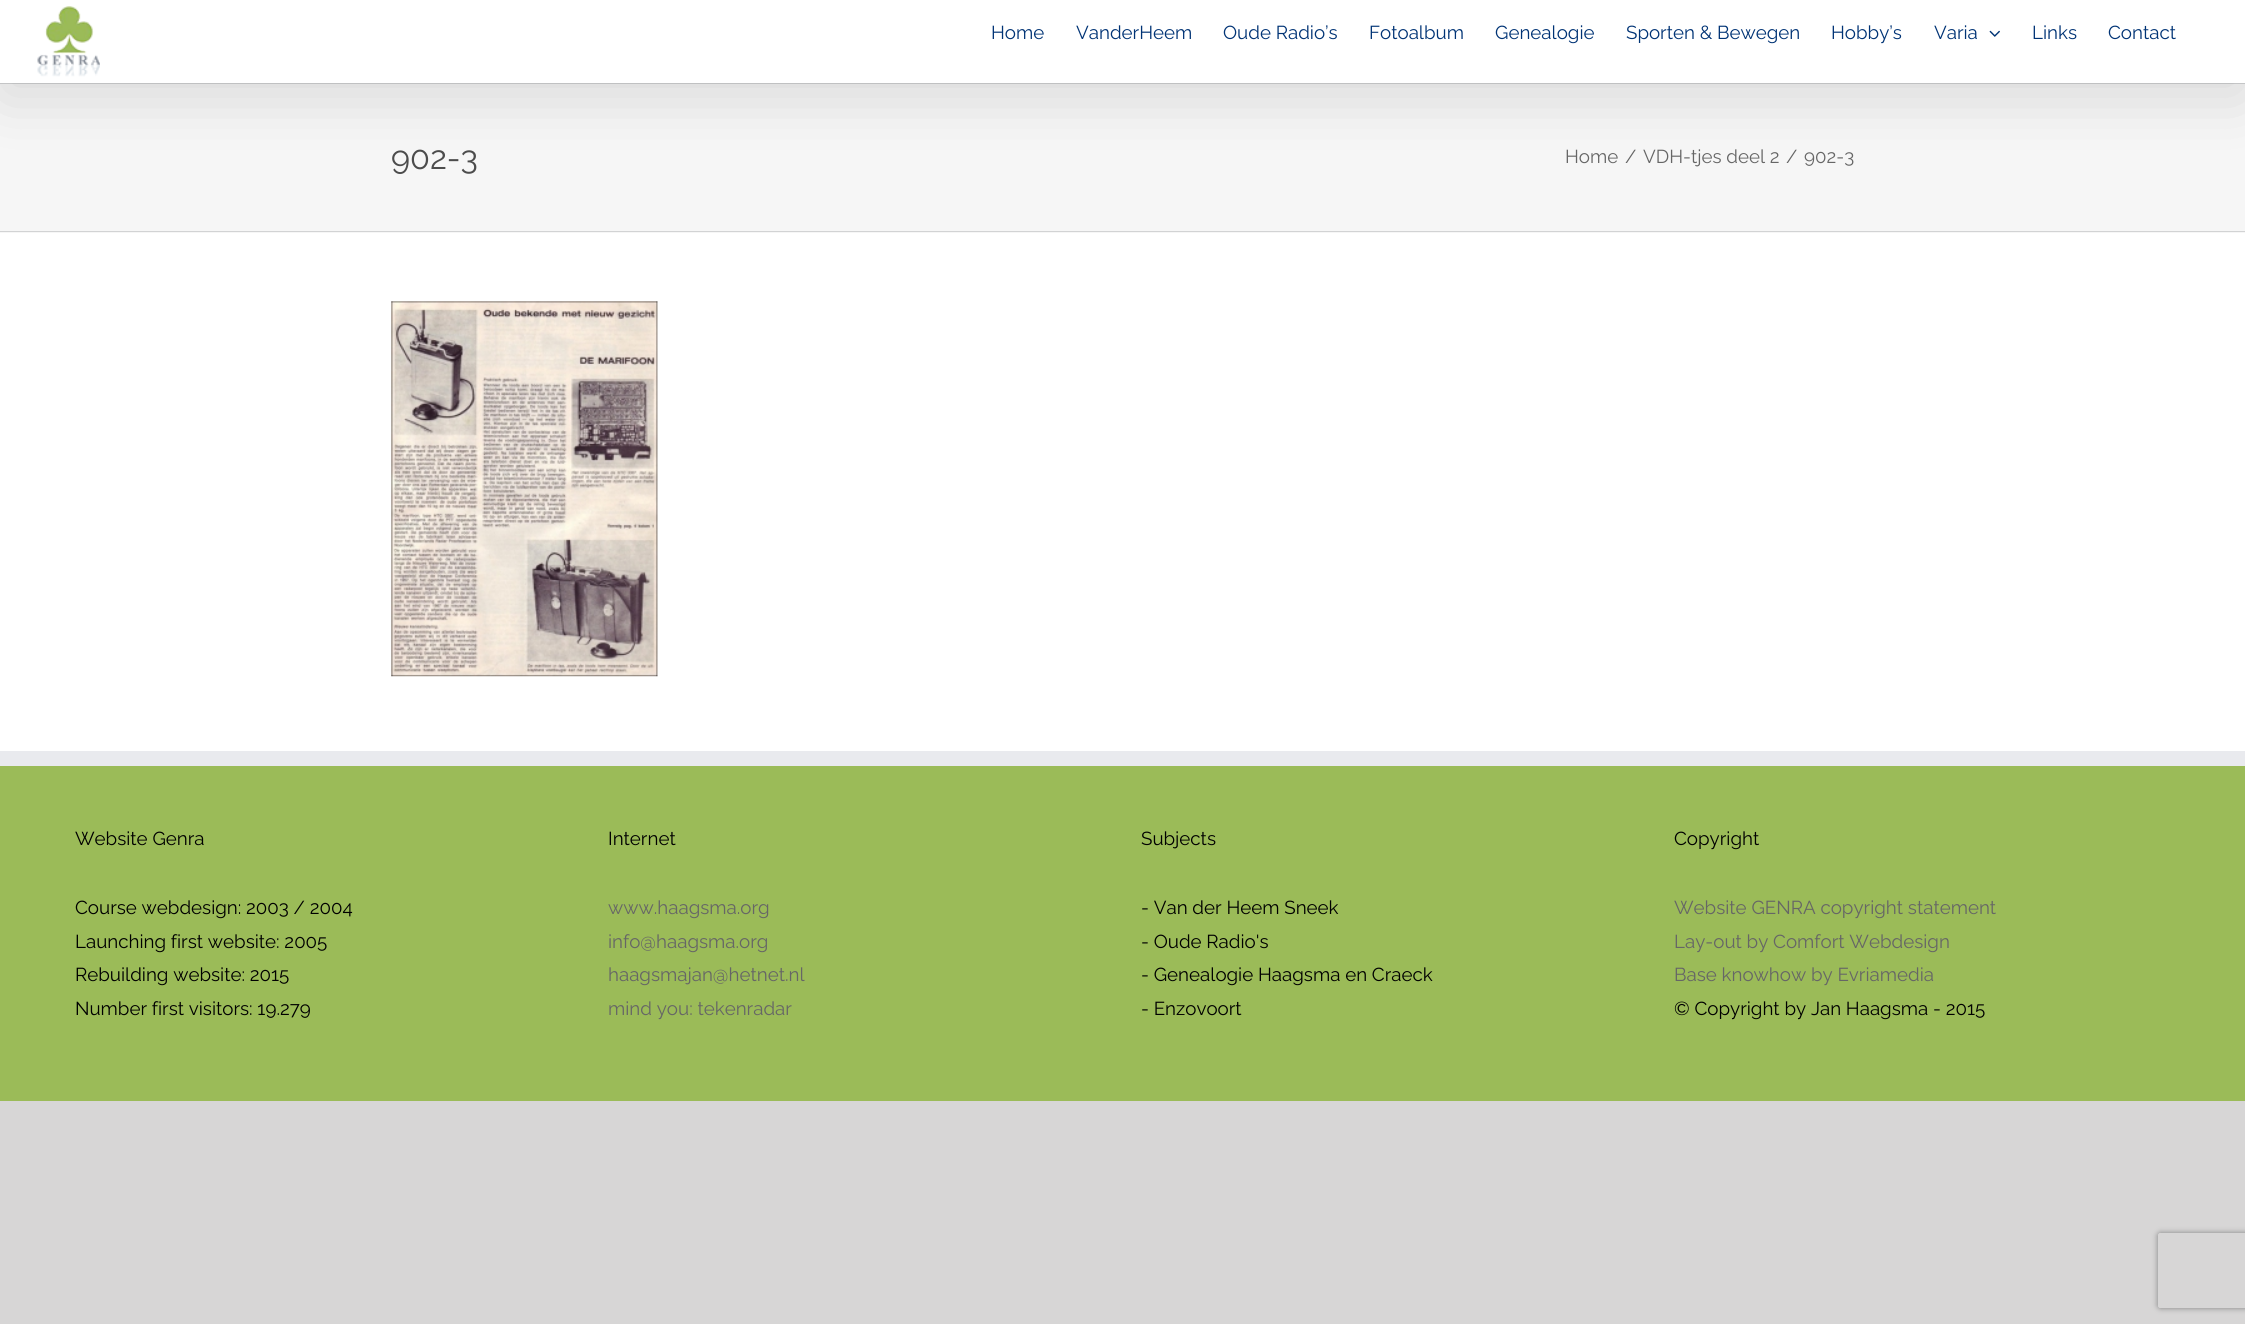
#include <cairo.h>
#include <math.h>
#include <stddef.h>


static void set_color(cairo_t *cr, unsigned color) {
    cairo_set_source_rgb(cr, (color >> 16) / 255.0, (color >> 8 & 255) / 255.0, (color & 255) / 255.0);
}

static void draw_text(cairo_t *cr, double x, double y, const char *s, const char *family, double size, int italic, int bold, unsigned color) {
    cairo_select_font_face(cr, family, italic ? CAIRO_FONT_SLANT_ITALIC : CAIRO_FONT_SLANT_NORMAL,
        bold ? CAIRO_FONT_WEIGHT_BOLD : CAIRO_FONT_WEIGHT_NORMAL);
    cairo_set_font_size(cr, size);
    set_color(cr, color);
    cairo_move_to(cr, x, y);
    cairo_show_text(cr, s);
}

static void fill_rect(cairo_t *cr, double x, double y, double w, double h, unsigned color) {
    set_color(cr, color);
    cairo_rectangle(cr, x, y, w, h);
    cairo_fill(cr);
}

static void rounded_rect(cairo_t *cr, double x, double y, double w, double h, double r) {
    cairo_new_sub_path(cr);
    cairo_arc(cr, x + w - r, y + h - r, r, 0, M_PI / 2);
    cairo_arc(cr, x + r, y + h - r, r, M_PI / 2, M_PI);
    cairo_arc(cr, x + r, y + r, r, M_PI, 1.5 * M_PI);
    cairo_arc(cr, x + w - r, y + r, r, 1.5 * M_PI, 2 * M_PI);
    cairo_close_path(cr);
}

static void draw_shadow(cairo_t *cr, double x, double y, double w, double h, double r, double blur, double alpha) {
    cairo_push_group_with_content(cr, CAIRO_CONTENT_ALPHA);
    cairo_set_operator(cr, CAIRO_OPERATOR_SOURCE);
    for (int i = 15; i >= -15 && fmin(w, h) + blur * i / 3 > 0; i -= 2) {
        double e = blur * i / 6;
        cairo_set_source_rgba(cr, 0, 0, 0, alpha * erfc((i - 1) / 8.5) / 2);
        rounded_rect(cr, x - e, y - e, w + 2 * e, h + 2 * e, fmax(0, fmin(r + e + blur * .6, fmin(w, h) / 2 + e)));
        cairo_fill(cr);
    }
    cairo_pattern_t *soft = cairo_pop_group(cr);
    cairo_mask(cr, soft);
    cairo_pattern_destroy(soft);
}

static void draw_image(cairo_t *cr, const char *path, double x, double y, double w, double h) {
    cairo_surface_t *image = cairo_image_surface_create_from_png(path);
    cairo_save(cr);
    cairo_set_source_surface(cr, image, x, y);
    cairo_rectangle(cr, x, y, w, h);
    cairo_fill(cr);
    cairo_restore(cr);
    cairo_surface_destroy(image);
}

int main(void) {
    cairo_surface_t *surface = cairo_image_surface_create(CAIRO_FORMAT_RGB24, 2245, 1324);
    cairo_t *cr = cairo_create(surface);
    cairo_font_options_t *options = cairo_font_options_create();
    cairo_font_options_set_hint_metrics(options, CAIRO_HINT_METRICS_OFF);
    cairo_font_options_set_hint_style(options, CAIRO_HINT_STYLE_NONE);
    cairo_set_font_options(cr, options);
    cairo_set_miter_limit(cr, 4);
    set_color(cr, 0xD7D6D6);
    cairo_paint(cr);
    fill_rect(cr, 0, 233, 2245, 518, 0xFFFFFF);
    fill_rect(cr, 0, 84, 2245, 149, 0xF6F6F6);
    fill_rect(cr, 0, 83, 2245, 1, 0xD2D3D4);
    set_color(cr, 0x000000);
    draw_shadow(cr, 3, 15, 2240, 78, 0, 31, 0.14);
    fill_rect(cr, 0, 0, 2245, 83, 0xFFFFFF);
    draw_image(cr, "assets/img1.png", 37, 6, 63, 71);
    draw_text(cr, 991, 39, "Home", "Raleway", 18.75, 0, 0, 0x003375);
    draw_text(cr, 1076, 39, "VanderHeem", "Raleway", 18.75, 0, 0, 0x003375);
    draw_text(cr, 1223, 39, "Oude Radio’s", "Raleway", 18.75, 0, 0, 0x003375);
    draw_text(cr, 1369, 39, "Fotoalbum", "Raleway", 18.75, 0, 0, 0x003375);
    draw_text(cr, 1495, 39, "Genealogie", "Raleway", 18.75, 0, 0, 0x003375);
    draw_text(cr, 1626, 39, "Sporten & Bewegen", "Raleway", 18.75, 0, 0, 0x003375);
    draw_text(cr, 1831, 39, "Hobby’s", "Raleway", 18.75, 0, 0, 0x003375);
    draw_text(cr, 1934, 39, "Varia", "Raleway", 18.75, 0, 0, 0x003375);
    draw_image(cr, "assets/img2.png", 1989, 30, 11, 7);
    draw_text(cr, 2032, 39, "Links", "Raleway", 18.75, 0, 0, 0x003375);
    draw_text(cr, 2108, 39, "Contact", "Raleway", 18.75, 0, 0, 0x003375);
    fill_rect(cr, 0, 231, 2245, 1, 0xD2D3D4);
    draw_text(cr, 391, 169, "902-3", "Raleway", 32.5, 0, 0, 0x4C4C4C);
    draw_text(cr, 1565, 163, "Home", "Raleway", 18.75, 0, 0, 0x666666);
    draw_text(cr, 1625, 163, "/", "Raleway", 18.75, 0, 0, 0x666666);
    draw_text(cr, 1643, 163, "VDH-tjes deel 2", "Raleway", 18.75, 0, 0, 0x666666);
    draw_text(cr, 1786, 163, "/", "Raleway", 18.75, 0, 0, 0x666666);
    draw_text(cr, 1804, 163, "902-3", "Raleway", 18.75, 0, 0, 0x666666);
    draw_image(cr, "assets/img3.png", 391, 301, 267, 376);
    fill_rect(cr, 0, 766, 2245, 335, 0x9BBB58);
    fill_rect(cr, 0, 751, 2245, 15, 0xE9EAEE);
    draw_text(cr, 75, 845, "Website Genra", "Raleway", 18.75, 0, 0, 0x000000);
    draw_text(cr, 75, 914, "Course webdesign: 2003 / 2004", "Raleway", 18.75, 0, 0, 0x000000);
    draw_text(cr, 75, 948, "Launching first website: 2005", "Raleway", 18.75, 0, 0, 0x000000);
    draw_text(cr, 75, 981, "Rebuilding website: 2015", "Raleway", 18.75, 0, 0, 0x000000);
    draw_text(cr, 75, 1015, "Number first visitors: 19.279", "Raleway", 18.75, 0, 0, 0x000000);
    draw_text(cr, 608, 845, "Internet", "Raleway", 18.75, 0, 0, 0x000000);
    draw_text(cr, 608, 914, "www.haagsma.org", "Raleway", 18.75, 0, 0, 0x666666);
    draw_text(cr, 608, 948, "info@haagsma.org", "Raleway", 18.75, 0, 0, 0x666666);
    draw_text(cr, 608, 981, "haagsmajan@hetnet.nl", "Raleway", 18.75, 0, 0, 0x666666);
    draw_text(cr, 608, 1015, "mind you: tekenradar", "Raleway", 18.75, 0, 0, 0x666666);
    draw_text(cr, 1141, 845, "Subjects", "Raleway", 18.75, 0, 0, 0x000000);
    draw_text(cr, 1141, 914, "- Van der Heem Sneek", "Raleway", 18.75, 0, 0, 0x000000);
    draw_text(cr, 1141, 948, "- Oude Radio's", "Raleway", 18.75, 0, 0, 0x000000);
    draw_text(cr, 1141, 981, "- Genealogie Haagsma en Craeck", "Raleway", 18.75, 0, 0, 0x000000);
    draw_text(cr, 1141, 1015, "- Enzovoort", "Raleway", 18.75, 0, 0, 0x000000);
    draw_text(cr, 1674, 845, "Copyright", "Raleway", 18.75, 0, 0, 0x000000);
    draw_text(cr, 1674, 914, "Website GENRA copyright statement", "Raleway", 18.75, 0, 0, 0x666666);
    draw_text(cr, 1674, 948, "Lay-out by Comfort Webdesign", "Raleway", 18.75, 0, 0, 0x666666);
    draw_text(cr, 1674, 981, "Base knowhow by Evriamedia", "Raleway", 18.75, 0, 0, 0x666666);
    draw_text(cr, 1674, 1015, "© Copyright by Jan Haagsma - 2015", "Raleway", 18.75, 0, 0, 0x000000);
    cairo_save(cr);
    cairo_set_fill_rule(cr, CAIRO_FILL_RULE_EVEN_ODD);
    cairo_new_path(cr);
    cairo_move_to(cr, 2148, 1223);
    cairo_line_to(cr, 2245, 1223);
    cairo_line_to(cr, 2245, 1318);
    cairo_line_to(cr, 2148, 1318);
    cairo_close_path(cr);
    cairo_move_to(cr, 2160.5, 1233);
    cairo_line_to(cr, 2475.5, 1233);
    cairo_curve_to(cr, 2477, 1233, 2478, 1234, 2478, 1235.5);
    cairo_line_to(cr, 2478, 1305.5);
    cairo_curve_to(cr, 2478, 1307, 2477, 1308, 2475.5, 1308);
    cairo_line_to(cr, 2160.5, 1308);
    cairo_curve_to(cr, 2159, 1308, 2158, 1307, 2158, 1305.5);
    cairo_line_to(cr, 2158, 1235.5);
    cairo_curve_to(cr, 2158, 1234, 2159, 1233, 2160.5, 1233);
    cairo_close_path(cr);
    cairo_clip(cr);
    set_color(cr, 0x808080);
    draw_shadow(cr, 2158, 1233, 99, 75, 2.5, 3, 1);
    cairo_restore(cr);
    cairo_surface_write_to_png(surface, "output.png");
    cairo_font_options_destroy(options);
    cairo_destroy(cr);
    cairo_surface_destroy(surface);
    return 0;
}
